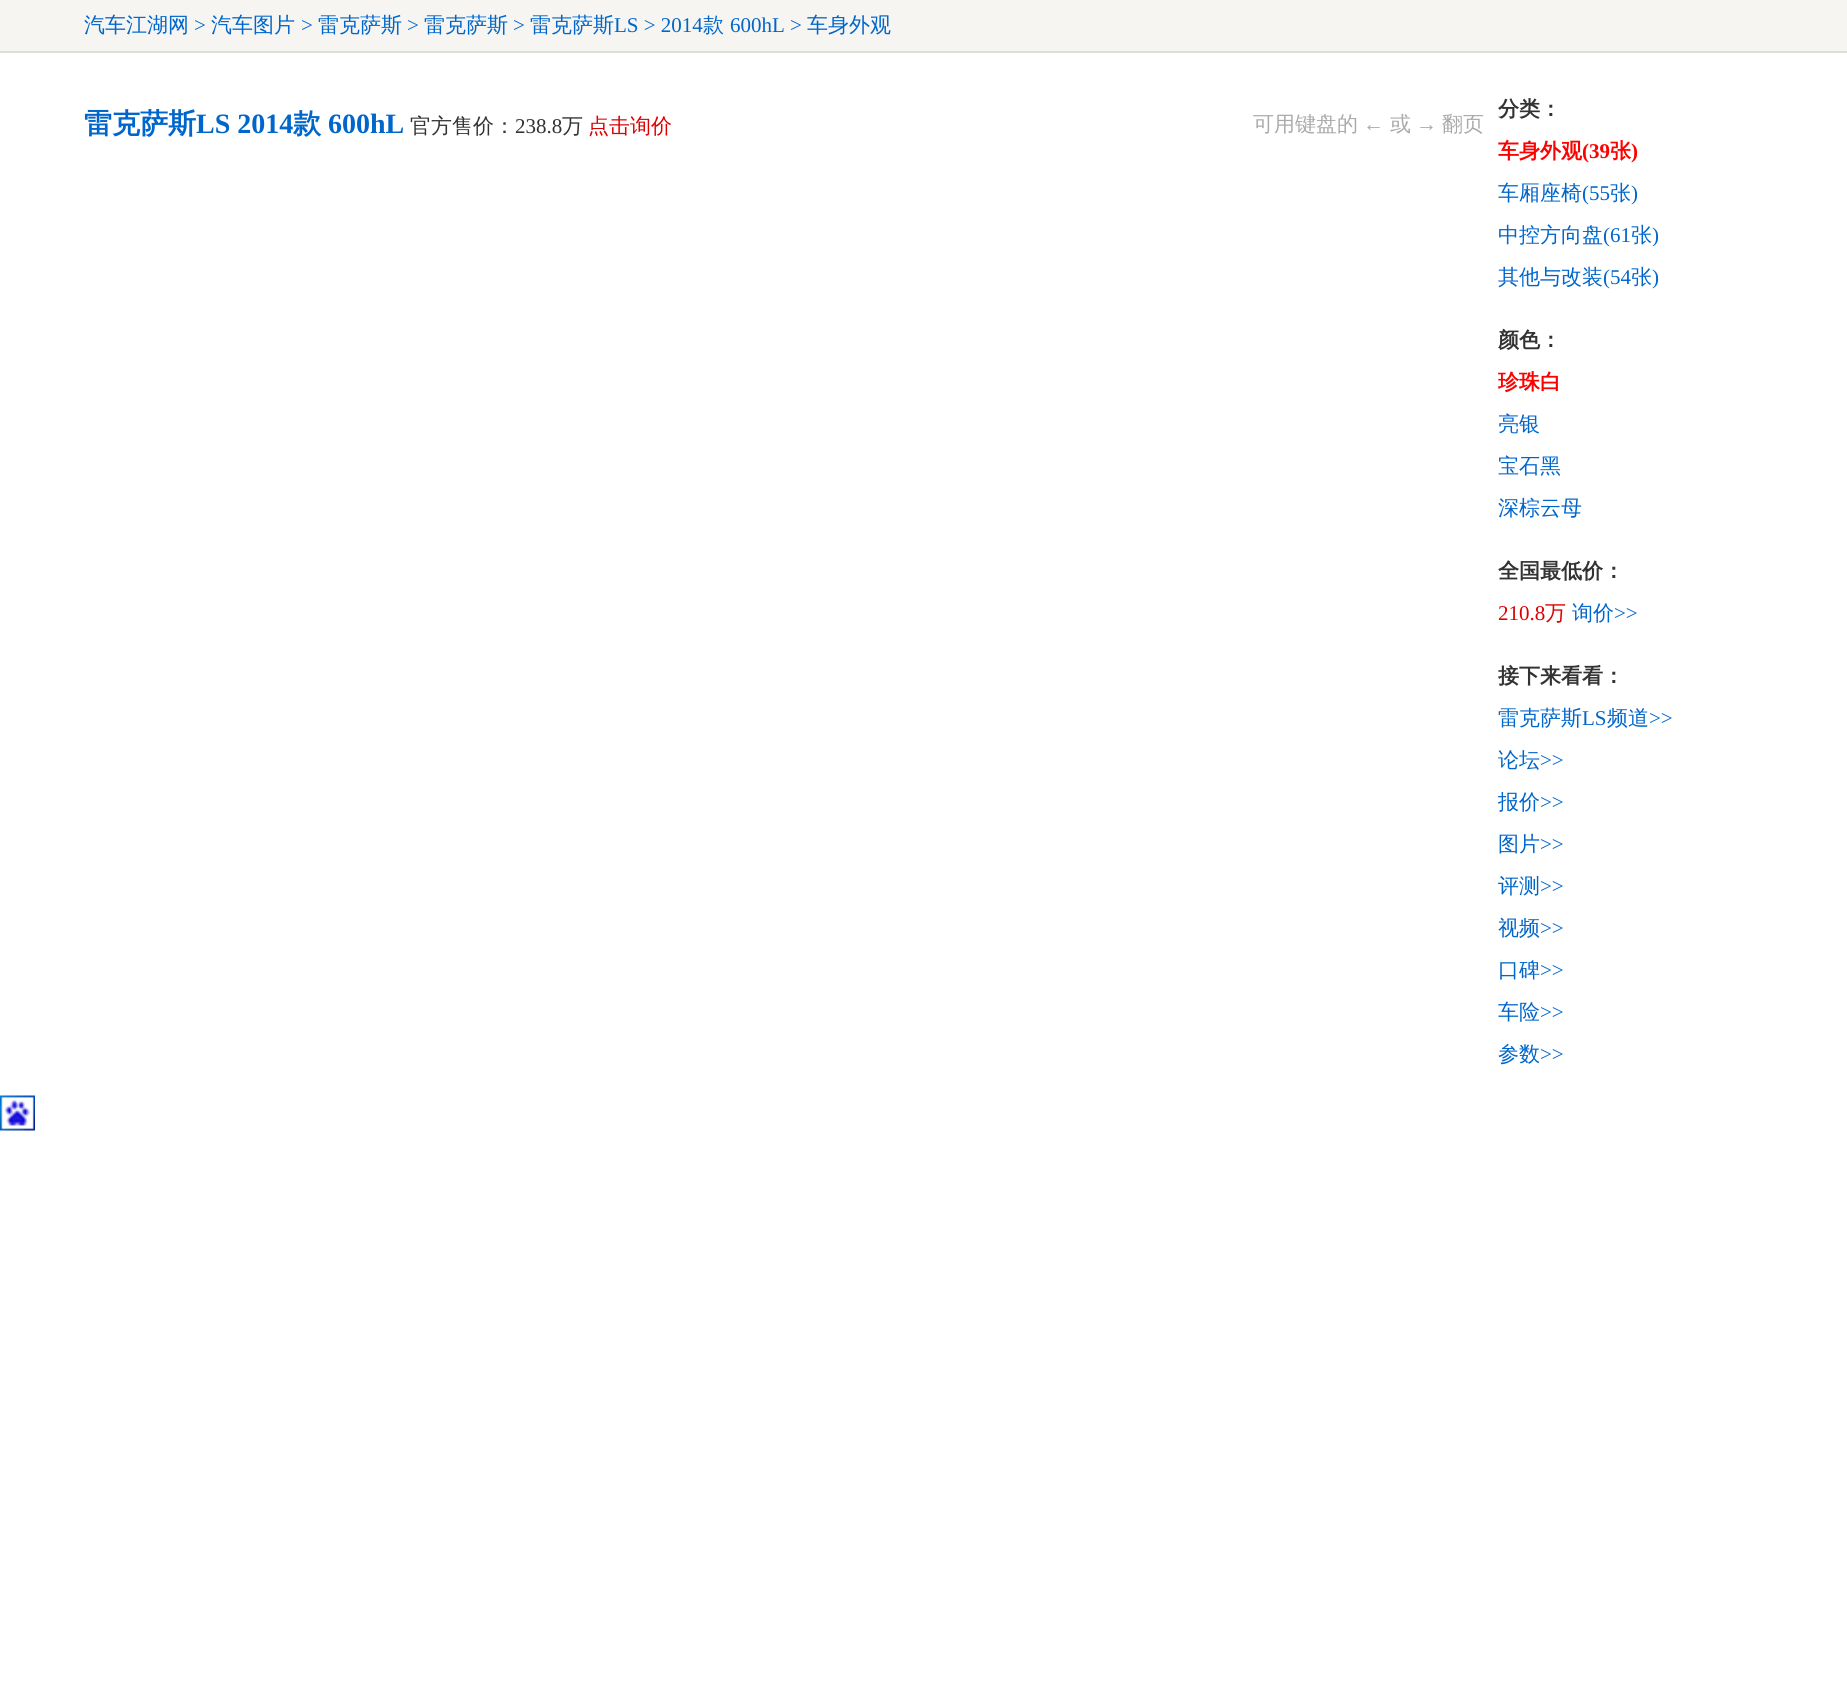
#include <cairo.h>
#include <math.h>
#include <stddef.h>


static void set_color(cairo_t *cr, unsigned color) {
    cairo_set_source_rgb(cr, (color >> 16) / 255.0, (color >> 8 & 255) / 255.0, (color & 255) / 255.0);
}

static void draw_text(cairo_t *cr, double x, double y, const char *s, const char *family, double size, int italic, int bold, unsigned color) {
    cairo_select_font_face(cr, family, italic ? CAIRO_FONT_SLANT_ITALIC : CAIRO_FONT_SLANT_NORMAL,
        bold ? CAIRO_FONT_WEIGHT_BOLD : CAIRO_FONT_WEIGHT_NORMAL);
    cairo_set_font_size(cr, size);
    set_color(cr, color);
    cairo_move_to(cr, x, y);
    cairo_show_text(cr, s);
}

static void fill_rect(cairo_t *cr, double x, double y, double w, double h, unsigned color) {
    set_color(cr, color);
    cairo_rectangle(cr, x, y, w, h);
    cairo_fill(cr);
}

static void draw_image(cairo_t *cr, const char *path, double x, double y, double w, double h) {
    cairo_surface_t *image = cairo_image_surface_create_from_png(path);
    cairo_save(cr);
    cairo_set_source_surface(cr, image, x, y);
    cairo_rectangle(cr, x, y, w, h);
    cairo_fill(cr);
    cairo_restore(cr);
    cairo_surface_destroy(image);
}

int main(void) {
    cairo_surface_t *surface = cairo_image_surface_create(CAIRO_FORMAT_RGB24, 1847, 1690);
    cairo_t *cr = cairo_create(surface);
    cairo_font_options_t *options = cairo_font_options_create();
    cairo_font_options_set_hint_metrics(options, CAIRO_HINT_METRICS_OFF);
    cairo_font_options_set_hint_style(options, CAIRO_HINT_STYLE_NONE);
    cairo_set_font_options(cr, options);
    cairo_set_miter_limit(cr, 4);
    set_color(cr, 0xFFFFFF);
    cairo_paint(cr);
    fill_rect(cr, 0, 0, 1847, 51, 0xF6F5F1);
    fill_rect(cr, 0, 51, 1847, 2, 0xDDDDDD);
    draw_text(cr, 84, 32, "汽车江湖网", "WenQuanYi Zen Hei Medium", 21, 0, 0, 0x0066CC);
    draw_text(cr, 194, 32, ">", "Liberation Serif", 21, 0, 0, 0x0066CC);
    draw_text(cr, 211, 32, "汽车图片", "WenQuanYi Zen Hei Medium", 21, 0, 0, 0x0066CC);
    draw_text(cr, 301, 32, ">", "Liberation Serif", 21, 0, 0, 0x0066CC);
    draw_text(cr, 318, 32, "雷克萨斯", "WenQuanYi Zen Hei Medium", 21, 0, 0, 0x0066CC);
    draw_text(cr, 407, 32, ">", "Liberation Serif", 21, 0, 0, 0x0066CC);
    draw_text(cr, 424, 32, "雷克萨斯", "WenQuanYi Zen Hei Medium", 21, 0, 0, 0x0066CC);
    draw_text(cr, 513, 32, ">", "Liberation Serif", 21, 0, 0, 0x0066CC);
    draw_text(cr, 530, 32, "雷克萨斯", "WenQuanYi Zen Hei Medium", 21, 0, 0, 0x0066CC);
    draw_text(cr, 614, 32, "LS > 2014", "Liberation Serif", 21, 0, 0, 0x0066CC);
    draw_text(cr, 703, 32, "款", "WenQuanYi Zen Hei Medium", 21, 0, 0, 0x0066CC);
    draw_text(cr, 730, 32, "600hL >", "Liberation Serif", 21, 0, 0, 0x0066CC);
    draw_text(cr, 807, 32, "车身外观", "WenQuanYi Zen Hei Medium", 21, 0, 0, 0x0066CC);
    draw_text(cr, 84, 133, "雷克萨斯", "WenQuanYi Zen Hei", 28, 0, 1, 0x0066CC);
    draw_text(cr, 196, 133, "LS 2014", "Liberation Serif", 28, 0, 1, 0x0066CC);
    draw_text(cr, 293, 133, "款", "WenQuanYi Zen Hei", 28, 0, 1, 0x0066CC);
    draw_text(cr, 328, 133, "600hL", "Liberation Serif", 28, 0, 1, 0x0066CC);
    draw_text(cr, 410, 133, "官方售价：", "WenQuanYi Zen Hei Medium", 21, 0, 0, 0x333333);
    draw_text(cr, 515, 133, "238.8", "Liberation Serif", 21, 0, 0, 0x333333);
    draw_text(cr, 562, 133, "万", "WenQuanYi Zen Hei Medium", 21, 0, 0, 0x333333);
    draw_text(cr, 588, 133, "点击询价", "WenQuanYi Zen Hei Medium", 21, 0, 0, 0xDD0000);
    draw_text(cr, 1253, 131, "可用键盘的", "WenQuanYi Zen Hei Medium", 21, 0, 0, 0xAAAAAA);
    draw_text(cr, 1363, 131, "←", "Liberation Serif", 21, 0, 0, 0xAAAAAA);
    draw_text(cr, 1390, 131, "或", "WenQuanYi Zen Hei Medium", 21, 0, 0, 0xAAAAAA);
    draw_text(cr, 1416, 131, "→", "Liberation Serif", 21, 0, 0, 0xAAAAAA);
    draw_text(cr, 1442, 131, "翻页", "WenQuanYi Zen Hei Medium", 21, 0, 0, 0xAAAAAA);
    draw_text(cr, 1498, 116, "分类：", "WenQuanYi Zen Hei", 21, 0, 1, 0x333333);
    draw_text(cr, 1498, 158, "车身外观", "WenQuanYi Zen Hei", 21, 0, 1, 0xFF0000);
    draw_text(cr, 1582, 158, "(39", "Liberation Serif", 21, 0, 1, 0xFF0000);
    draw_text(cr, 1610, 158, "张", "WenQuanYi Zen Hei", 21, 0, 1, 0xFF0000);
    draw_text(cr, 1631, 158, ")", "Liberation Serif", 21, 0, 1, 0xFF0000);
    draw_text(cr, 1498, 200, "车厢座椅", "WenQuanYi Zen Hei Medium", 21, 0, 0, 0x0066CC);
    draw_text(cr, 1582, 200, "(55", "Liberation Serif", 21, 0, 0, 0x0066CC);
    draw_text(cr, 1610, 200, "张", "WenQuanYi Zen Hei Medium", 21, 0, 0, 0x0066CC);
    draw_text(cr, 1631, 200, ")", "Liberation Serif", 21, 0, 0, 0x0066CC);
    draw_text(cr, 1498, 242, "中控方向盘", "WenQuanYi Zen Hei Medium", 21, 0, 0, 0x0066CC);
    draw_text(cr, 1603, 242, "(61", "Liberation Serif", 21, 0, 0, 0x0066CC);
    draw_text(cr, 1631, 242, "张", "WenQuanYi Zen Hei Medium", 21, 0, 0, 0x0066CC);
    draw_text(cr, 1652, 242, ")", "Liberation Serif", 21, 0, 0, 0x0066CC);
    draw_text(cr, 1498, 284, "其他与改装", "WenQuanYi Zen Hei Medium", 21, 0, 0, 0x0066CC);
    draw_text(cr, 1603, 284, "(54", "Liberation Serif", 21, 0, 0, 0x0066CC);
    draw_text(cr, 1631, 284, "张", "WenQuanYi Zen Hei Medium", 21, 0, 0, 0x0066CC);
    draw_text(cr, 1652, 284, ")", "Liberation Serif", 21, 0, 0, 0x0066CC);
    draw_text(cr, 1498, 347, "颜色：", "WenQuanYi Zen Hei", 21, 0, 1, 0x333333);
    draw_text(cr, 1498, 389, "珍珠白", "WenQuanYi Zen Hei", 21, 0, 1, 0xFF0000);
    draw_text(cr, 1498, 431, "亮银", "WenQuanYi Zen Hei Medium", 21, 0, 0, 0x0066CC);
    draw_text(cr, 1498, 473, "宝石黑", "WenQuanYi Zen Hei Medium", 21, 0, 0, 0x0066CC);
    draw_text(cr, 1498, 515, "深棕云母", "WenQuanYi Zen Hei Medium", 21, 0, 0, 0x0066CC);
    draw_text(cr, 1498, 578, "全国最低价：", "WenQuanYi Zen Hei", 21, 0, 1, 0x333333);
    draw_text(cr, 1498, 620, "210.8", "Liberation Serif", 21, 0, 0, 0xDD0000);
    draw_text(cr, 1545, 620, "万", "WenQuanYi Zen Hei Medium", 21, 0, 0, 0xDD0000);
    draw_text(cr, 1572, 620, "询价", "WenQuanYi Zen Hei Medium", 21, 0, 0, 0x0066CC);
    draw_text(cr, 1614, 620, ">>", "Liberation Serif", 21, 0, 0, 0x0066CC);
    draw_text(cr, 1498, 683, "接下来看看：", "WenQuanYi Zen Hei", 21, 0, 1, 0x333333);
    draw_text(cr, 1498, 725, "雷克萨斯", "WenQuanYi Zen Hei Medium", 21, 0, 0, 0x0066CC);
    draw_text(cr, 1582, 725, "LS", "Liberation Serif", 21, 0, 0, 0x0066CC);
    draw_text(cr, 1607, 725, "频道", "WenQuanYi Zen Hei Medium", 21, 0, 0, 0x0066CC);
    draw_text(cr, 1649, 725, ">>", "Liberation Serif", 21, 0, 0, 0x0066CC);
    draw_text(cr, 1498, 767, "论坛", "WenQuanYi Zen Hei Medium", 21, 0, 0, 0x0066CC);
    draw_text(cr, 1540, 767, ">>", "Liberation Serif", 21, 0, 0, 0x0066CC);
    draw_text(cr, 1498, 809, "报价", "WenQuanYi Zen Hei Medium", 21, 0, 0, 0x0066CC);
    draw_text(cr, 1540, 809, ">>", "Liberation Serif", 21, 0, 0, 0x0066CC);
    draw_text(cr, 1498, 851, "图片", "WenQuanYi Zen Hei Medium", 21, 0, 0, 0x0066CC);
    draw_text(cr, 1540, 851, ">>", "Liberation Serif", 21, 0, 0, 0x0066CC);
    draw_text(cr, 1498, 893, "评测", "WenQuanYi Zen Hei Medium", 21, 0, 0, 0x0066CC);
    draw_text(cr, 1540, 893, ">>", "Liberation Serif", 21, 0, 0, 0x0066CC);
    draw_text(cr, 1498, 935, "视频", "WenQuanYi Zen Hei Medium", 21, 0, 0, 0x0066CC);
    draw_text(cr, 1540, 935, ">>", "Liberation Serif", 21, 0, 0, 0x0066CC);
    draw_text(cr, 1498, 977, "口碑", "WenQuanYi Zen Hei Medium", 21, 0, 0, 0x0066CC);
    draw_text(cr, 1540, 977, ">>", "Liberation Serif", 21, 0, 0, 0x0066CC);
    draw_text(cr, 1498, 1019, "车险", "WenQuanYi Zen Hei Medium", 21, 0, 0, 0x0066CC);
    draw_text(cr, 1540, 1019, ">>", "Liberation Serif", 21, 0, 0, 0x0066CC);
    draw_text(cr, 1498, 1061, "参数", "WenQuanYi Zen Hei Medium", 21, 0, 0, 0x0066CC);
    draw_text(cr, 1540, 1061, ">>", "Liberation Serif", 21, 0, 0, 0x0066CC);
    draw_image(cr, "assets/img1.png", 0, 1095, 35, 36);
    cairo_surface_write_to_png(surface, "output.png");
    cairo_font_options_destroy(options);
    cairo_destroy(cr);
    cairo_surface_destroy(surface);
    return 0;
}
